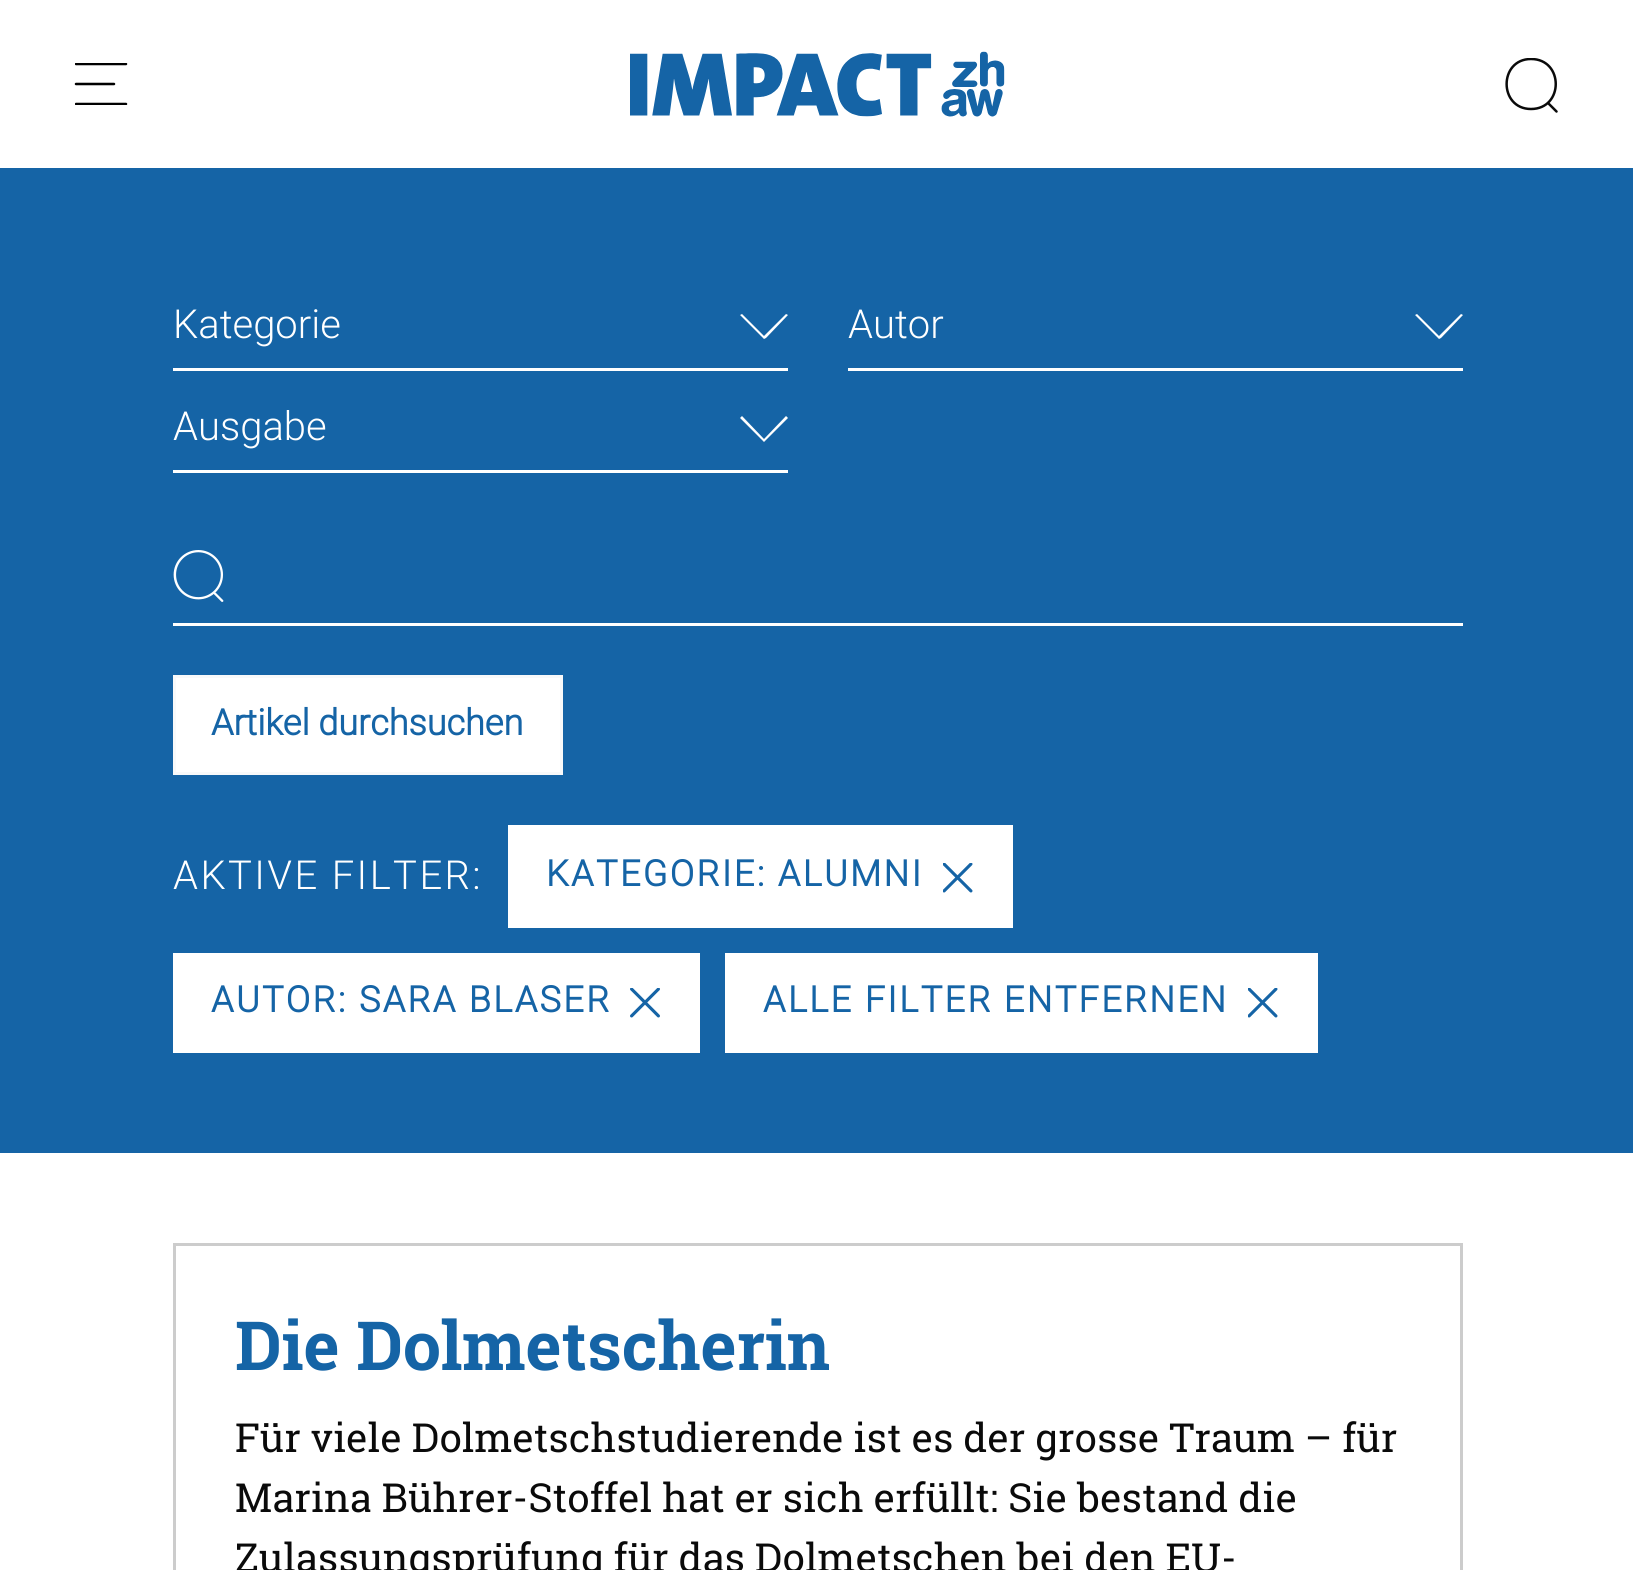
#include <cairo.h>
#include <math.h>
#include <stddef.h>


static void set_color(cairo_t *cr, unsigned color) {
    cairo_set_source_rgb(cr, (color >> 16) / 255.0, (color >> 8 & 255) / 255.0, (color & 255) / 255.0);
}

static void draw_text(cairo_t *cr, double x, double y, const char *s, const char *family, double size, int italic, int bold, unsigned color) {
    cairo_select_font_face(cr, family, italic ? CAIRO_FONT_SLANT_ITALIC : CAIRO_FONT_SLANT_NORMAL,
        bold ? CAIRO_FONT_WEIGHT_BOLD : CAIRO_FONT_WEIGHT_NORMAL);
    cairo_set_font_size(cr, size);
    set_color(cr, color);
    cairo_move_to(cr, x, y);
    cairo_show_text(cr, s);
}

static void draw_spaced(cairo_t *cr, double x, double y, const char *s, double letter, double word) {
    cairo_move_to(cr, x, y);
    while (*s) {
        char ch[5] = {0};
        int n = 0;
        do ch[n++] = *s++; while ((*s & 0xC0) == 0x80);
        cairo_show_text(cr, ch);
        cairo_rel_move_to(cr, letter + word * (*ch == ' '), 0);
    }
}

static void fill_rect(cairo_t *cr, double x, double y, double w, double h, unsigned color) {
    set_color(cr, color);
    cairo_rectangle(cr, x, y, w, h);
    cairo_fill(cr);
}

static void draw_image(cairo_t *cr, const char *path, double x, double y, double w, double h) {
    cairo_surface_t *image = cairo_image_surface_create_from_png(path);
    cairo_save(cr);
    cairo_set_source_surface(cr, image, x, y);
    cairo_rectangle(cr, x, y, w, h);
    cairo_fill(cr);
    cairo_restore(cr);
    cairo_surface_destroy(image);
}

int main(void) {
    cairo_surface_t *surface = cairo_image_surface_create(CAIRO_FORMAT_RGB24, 1633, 1570);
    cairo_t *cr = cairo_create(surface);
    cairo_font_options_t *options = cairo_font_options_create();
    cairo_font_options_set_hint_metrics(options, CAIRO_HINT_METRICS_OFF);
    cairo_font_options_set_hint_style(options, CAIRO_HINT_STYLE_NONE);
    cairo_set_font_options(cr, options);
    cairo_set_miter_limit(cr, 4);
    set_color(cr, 0xFFFFFF);
    cairo_paint(cr);
    cairo_save(cr);
    cairo_rectangle(cr, 75, 63, 53, 42);
    cairo_clip(cr);
    cairo_new_path(cr);
    cairo_move_to(cr, 76, 104);
    cairo_line_to(cr, 126, 104);
    set_color(cr, 0x000000);
    cairo_set_line_width(cr, 2.5);
    cairo_set_line_cap(cr, CAIRO_LINE_CAP_ROUND);
    cairo_stroke(cr);
    cairo_restore(cr);
    cairo_new_path(cr);
    cairo_move_to(cr, 76, 84);
    cairo_line_to(cr, 114, 84);
    set_color(cr, 0x000000);
    cairo_set_line_width(cr, 2.5);
    cairo_set_line_cap(cr, CAIRO_LINE_CAP_ROUND);
    cairo_stroke(cr);
    cairo_save(cr);
    cairo_rectangle(cr, 75, 63, 53, 42);
    cairo_clip(cr);
    cairo_new_path(cr);
    cairo_move_to(cr, 76, 64);
    cairo_line_to(cr, 126, 64);
    cairo_stroke(cr);
    cairo_restore(cr);
    draw_image(cr, "assets/img1.png", 630, 51, 375, 66);
    cairo_save(cr);
    cairo_rectangle(cr, 1505, 58, 55, 55);
    cairo_clip(cr);
    cairo_new_path(cr);
    cairo_move_to(cr, 1531, 59);
    cairo_curve_to(cr, 1498.5, 59, 1498.5, 109, 1531, 109);
    cairo_curve_to(cr, 1564, 109, 1564, 59, 1531, 59);
    cairo_close_path(cr);
    set_color(cr, 0x0A0A0A);
    cairo_set_line_cap(cr, CAIRO_LINE_CAP_BUTT);
    cairo_stroke(cr);
    cairo_restore(cr);
    cairo_new_path(cr);
    cairo_move_to(cr, 1549, 104);
    cairo_line_to(cr, 1556.5, 111.5);
    set_color(cr, 0x0A0A0A);
    cairo_stroke(cr);
    fill_rect(cr, 0, 168, 1633, 985, 0x1564A6);
    fill_rect(cr, 173, 368, 615, 3, 0xFFFFFF);
    draw_text(cr, 173, 338, "Kategorie", "Roboto Light", 40, 0, 0, 0xFFFFFF);
    cairo_new_path(cr);
    cairo_move_to(cr, 766, 338);
    cairo_line_to(cr, 788, 315);
    cairo_line_to(cr, 786, 314);
    cairo_line_to(cr, 764, 336);
    cairo_line_to(cr, 742, 314);
    cairo_line_to(cr, 740, 315);
    cairo_line_to(cr, 764, 339);
    cairo_close_path(cr);
    cairo_fill(cr);
    fill_rect(cr, 848, 368, 615, 3, 0xFFFFFF);
    draw_text(cr, 848, 338, "Autor", "Roboto Light", 40, 0, 0, 0xFFFFFF);
    cairo_new_path(cr);
    cairo_move_to(cr, 1441, 338);
    cairo_line_to(cr, 1463, 315);
    cairo_line_to(cr, 1461, 314);
    cairo_line_to(cr, 1439, 336);
    cairo_line_to(cr, 1417, 314);
    cairo_line_to(cr, 1415, 315);
    cairo_line_to(cr, 1439, 339);
    cairo_close_path(cr);
    cairo_fill(cr);
    fill_rect(cr, 173, 470, 615, 3, 0xFFFFFF);
    draw_text(cr, 173, 440, "Ausgabe", "Roboto Light", 40, 0, 0, 0xFFFFFF);
    cairo_new_path(cr);
    cairo_move_to(cr, 766, 440);
    cairo_line_to(cr, 788, 418);
    cairo_line_to(cr, 786, 416);
    cairo_line_to(cr, 764, 439);
    cairo_line_to(cr, 742, 416);
    cairo_line_to(cr, 740, 418);
    cairo_line_to(cr, 764, 442);
    cairo_close_path(cr);
    cairo_fill(cr);
    draw_image(cr, "assets/img2.png", 173, 550, 51, 52);
    fill_rect(cr, 173, 623, 1290, 3, 0xFFFFFF);
    cairo_rectangle(cr, 174.5, 676.5, 387, 97);
    cairo_fill_preserve(cr);
    set_color(cr, 0xF8F9FA);
    cairo_set_line_width(cr, 3);
    cairo_set_line_cap(cr, CAIRO_LINE_CAP_BUTT);
    cairo_stroke(cr);
    draw_text(cr, 211, 735, "Artikel durchsuchen", "Roboto", 36, 0, 1, 0x1564A6);
    cairo_select_font_face(cr, "Roboto Light", CAIRO_FONT_SLANT_NORMAL, CAIRO_FONT_WEIGHT_NORMAL);
    cairo_set_font_size(cr, 40);
    set_color(cr, 0xFFFFFF);
    draw_spaced(cr, 173, 889, "AKTIVE FILTER:", 2.4, 0);
    fill_rect(cr, 508, 825, 505, 103, 0xFFFFFF);
    cairo_select_font_face(cr, "Roboto", CAIRO_FONT_SLANT_NORMAL, CAIRO_FONT_WEIGHT_BOLD);
    cairo_set_font_size(cr, 36);
    set_color(cr, 0x1564A6);
    draw_spaced(cr, 546, 886, "KATEGORIE: ALUMNI", 2.4, 0);
    draw_image(cr, "assets/img3.png", 943, 863, 30, 30);
    fill_rect(cr, 173, 953, 527, 100, 0xFFFFFF);
    set_color(cr, 0x1564A6);
    draw_spaced(cr, 211, 1012, "AUTOR: SARA BLASER", 2.4, 0);
    draw_image(cr, "assets/img4.png", 630, 988, 30, 30);
    fill_rect(cr, 725, 953, 593, 100, 0xFFFFFF);
    set_color(cr, 0x1564A6);
    draw_spaced(cr, 763, 1012, "ALLE FILTER ENTFERNEN", 2.4, 0);
    draw_image(cr, "assets/img3.png", 1248, 988, 30, 30);
    cairo_rectangle(cr, 174.5, 1244.5, 1287, 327);
    set_color(cr, 0xCCCCCC);
    cairo_stroke(cr);
    draw_text(cr, 235, 1370, "Die Dolmetscherin", "Roboto Slab", 67.75, 0, 1, 0x1564A6);
    draw_text(cr, 235, 1452, "Für viele Dolmetschstudierende ist es der grosse Traum – für", "Roboto Slab", 40, 0, 0, 0x0A0A0A);
    draw_text(cr, 235, 1512, "Marina Bührer-Stoffel hat er sich erfüllt: Sie bestand die", "Roboto Slab", 40, 0, 0, 0x0A0A0A);
    draw_text(cr, 235, 1572, "Zulassungsprüfung für das Dolmetschen bei den EU-", "Roboto Slab", 40, 0, 0, 0x0A0A0A);
    cairo_surface_write_to_png(surface, "output.png");
    cairo_font_options_destroy(options);
    cairo_destroy(cr);
    cairo_surface_destroy(surface);
    return 0;
}
